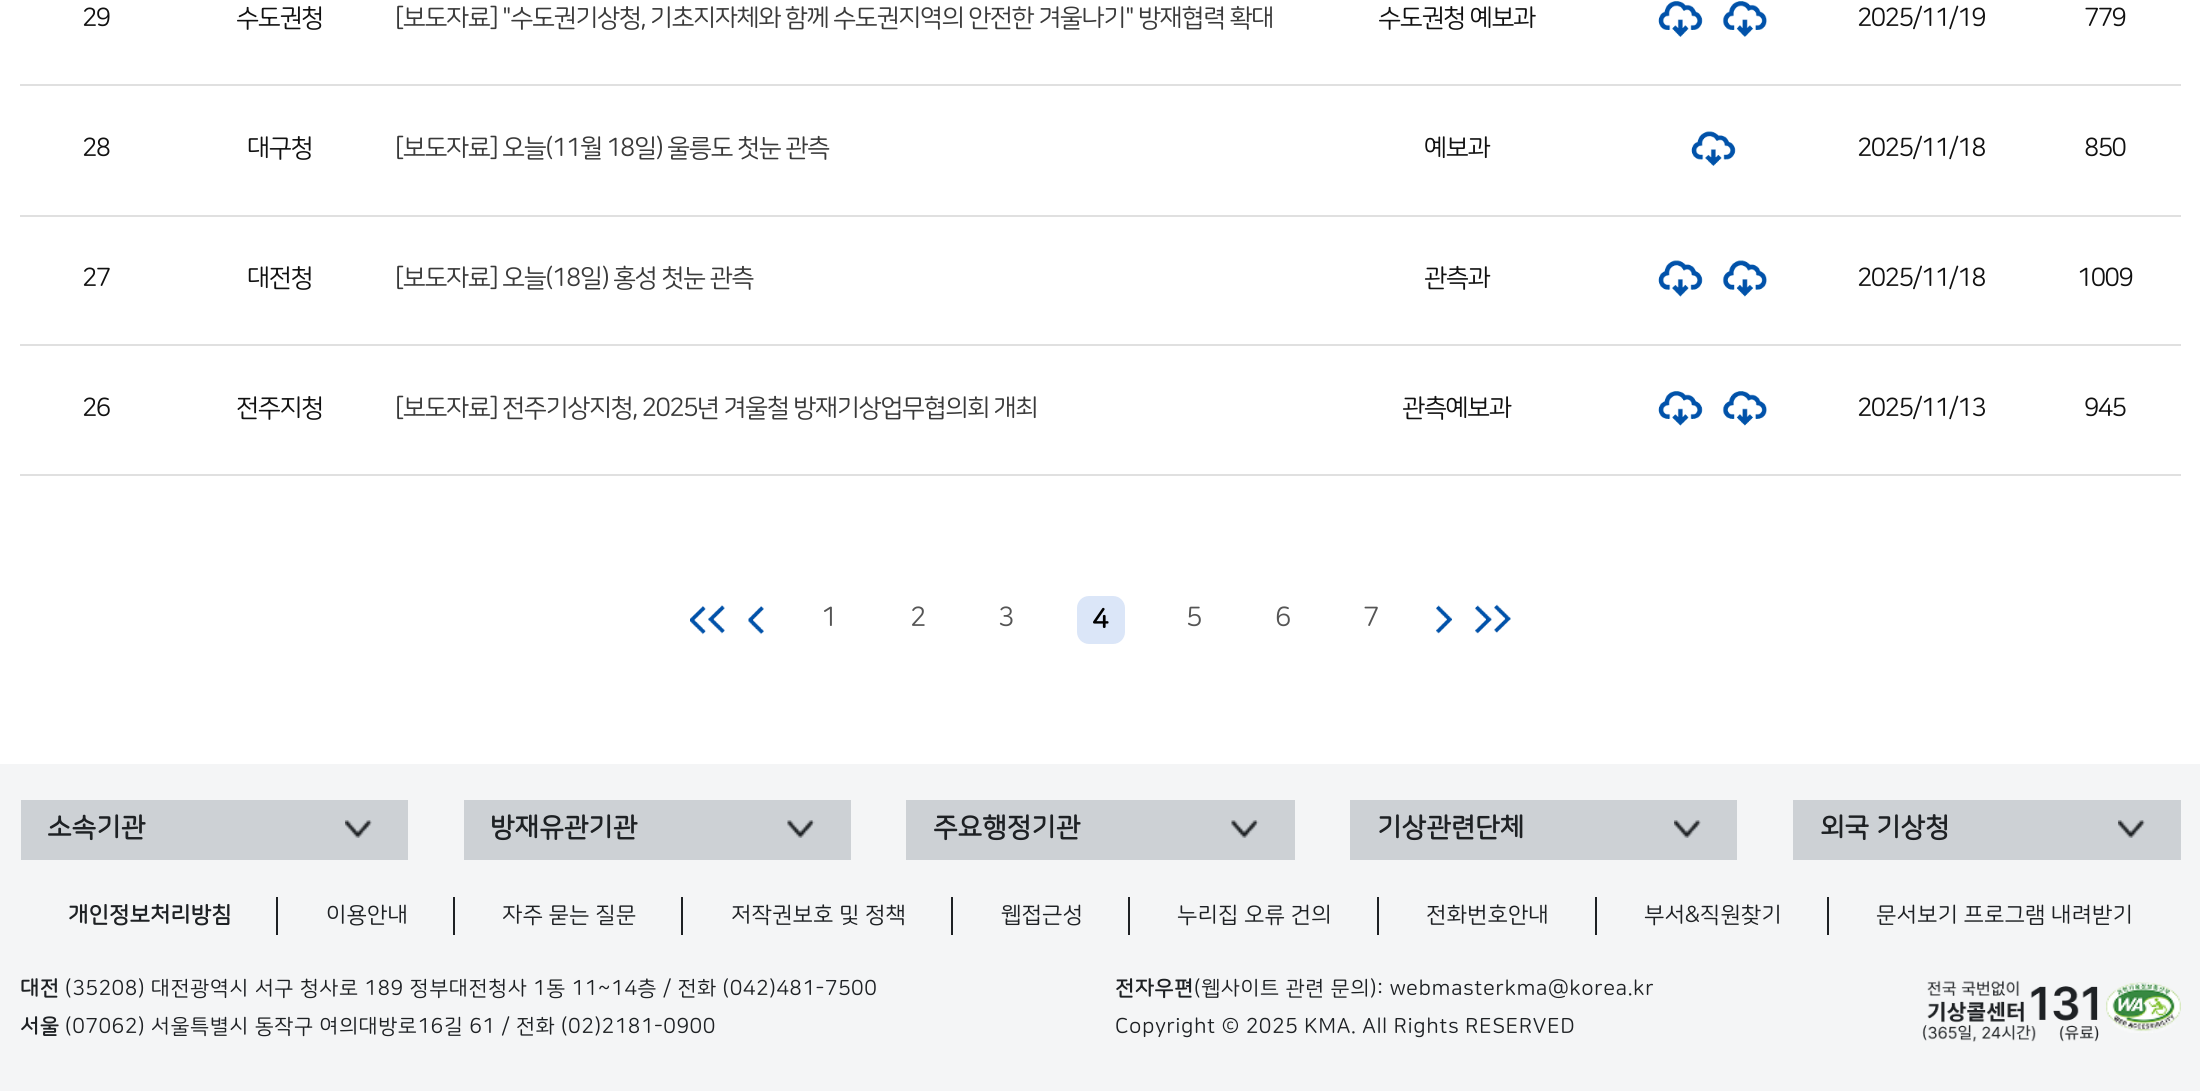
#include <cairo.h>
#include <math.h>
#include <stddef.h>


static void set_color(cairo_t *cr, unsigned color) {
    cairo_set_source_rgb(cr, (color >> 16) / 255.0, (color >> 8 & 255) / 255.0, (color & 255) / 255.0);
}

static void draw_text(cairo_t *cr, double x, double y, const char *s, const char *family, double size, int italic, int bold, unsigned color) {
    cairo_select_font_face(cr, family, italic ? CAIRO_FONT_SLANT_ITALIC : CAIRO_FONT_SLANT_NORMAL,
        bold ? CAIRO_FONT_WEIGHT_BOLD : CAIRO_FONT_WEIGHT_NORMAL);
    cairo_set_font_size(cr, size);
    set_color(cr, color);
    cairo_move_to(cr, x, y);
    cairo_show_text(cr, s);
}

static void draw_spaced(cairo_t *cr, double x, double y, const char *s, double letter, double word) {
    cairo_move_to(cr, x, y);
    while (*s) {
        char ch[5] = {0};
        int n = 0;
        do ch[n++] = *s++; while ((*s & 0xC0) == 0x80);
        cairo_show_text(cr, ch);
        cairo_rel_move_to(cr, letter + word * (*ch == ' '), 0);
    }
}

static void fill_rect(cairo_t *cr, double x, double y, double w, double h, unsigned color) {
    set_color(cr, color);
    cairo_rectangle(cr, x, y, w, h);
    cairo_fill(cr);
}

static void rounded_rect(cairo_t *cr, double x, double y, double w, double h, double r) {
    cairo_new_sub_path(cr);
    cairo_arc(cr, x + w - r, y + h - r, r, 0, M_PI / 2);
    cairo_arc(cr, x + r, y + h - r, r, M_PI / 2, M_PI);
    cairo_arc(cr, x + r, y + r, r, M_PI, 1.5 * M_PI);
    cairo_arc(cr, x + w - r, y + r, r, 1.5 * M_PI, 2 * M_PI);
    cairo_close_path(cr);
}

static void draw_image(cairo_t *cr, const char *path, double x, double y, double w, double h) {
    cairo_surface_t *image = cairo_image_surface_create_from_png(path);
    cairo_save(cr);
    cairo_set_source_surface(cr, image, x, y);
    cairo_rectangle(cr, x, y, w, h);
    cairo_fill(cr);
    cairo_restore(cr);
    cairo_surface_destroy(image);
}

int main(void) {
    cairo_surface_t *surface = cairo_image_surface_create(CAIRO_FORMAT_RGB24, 2200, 1091);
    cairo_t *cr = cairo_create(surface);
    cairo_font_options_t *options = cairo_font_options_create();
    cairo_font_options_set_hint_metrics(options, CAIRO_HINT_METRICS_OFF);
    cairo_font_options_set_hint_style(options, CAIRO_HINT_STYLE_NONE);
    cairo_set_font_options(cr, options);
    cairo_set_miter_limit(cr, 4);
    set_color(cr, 0xFFFFFF);
    cairo_paint(cr);
    cairo_select_font_face(cr, "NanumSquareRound", CAIRO_FONT_SLANT_NORMAL, CAIRO_FONT_WEIGHT_NORMAL);
    cairo_set_font_size(cr, 25.5);
    set_color(cr, 0x111111);
    draw_spaced(cr, 82, 26, "29", -1.5, 0);
    draw_spaced(cr, 236, 26, "수도권청", -1.5, 0);
    set_color(cr, 0x3A3A3A);
    draw_spaced(cr, 395, 26, "[보도자료] \"수도권기상청, 기초지자체와 함께 수도권지역의 안전한 겨울나기\" 방재협력 확대", -1.5, 0);
    set_color(cr, 0x111111);
    draw_spaced(cr, 1378, 26, "수도권청 예보과", -1.5, 0);
    draw_image(cr, "assets/img1.png", 1658, 1, 45, 36);
    draw_image(cr, "assets/img2.png", 1722, 1, 45, 36);
    draw_spaced(cr, 1857, 26, "2025/11/19", -1.5, 0);
    fill_rect(cr, 20, 84, 2161, 2, 0xE0E0E0);
    set_color(cr, 0x111111);
    draw_spaced(cr, 2084, 26, "779", -1.5, 0);
    draw_spaced(cr, 82, 156, "28", -1.5, 0);
    draw_spaced(cr, 247, 156, "대구청", -1.5, 0);
    set_color(cr, 0x3A3A3A);
    draw_spaced(cr, 395, 156, "[보도자료] 오늘(11월 18일) 울릉도 첫눈 관측", -1.5, 0);
    set_color(cr, 0x111111);
    draw_spaced(cr, 1424, 156, "예보과", -1.5, 0);
    draw_image(cr, "assets/img3.png", 1691, 131, 45, 35);
    draw_spaced(cr, 1857, 156, "2025/11/18", -1.5, 0);
    fill_rect(cr, 20, 215, 2161, 2, 0xE0E0E0);
    set_color(cr, 0x111111);
    draw_spaced(cr, 2084, 156, "850", -1.5, 0);
    draw_spaced(cr, 82, 286, "27", -1.5, 0);
    draw_spaced(cr, 247, 286, "대전청", -1.5, 0);
    set_color(cr, 0x3A3A3A);
    draw_spaced(cr, 395, 286, "[보도자료] 오늘(18일) 홍성 첫눈 관측", -1.5, 0);
    set_color(cr, 0x111111);
    draw_spaced(cr, 1424, 286, "관측과", -1.5, 0);
    draw_image(cr, "assets/img4.png", 1658, 260, 45, 37);
    draw_image(cr, "assets/img5.png", 1722, 260, 45, 37);
    draw_spaced(cr, 1857, 286, "2025/11/18", -1.5, 0);
    fill_rect(cr, 20, 344, 2161, 2, 0xE0E0E0);
    set_color(cr, 0x111111);
    draw_spaced(cr, 2077, 286, "1009", -1.5, 0);
    draw_spaced(cr, 82, 416, "26", -1.5, 0);
    draw_spaced(cr, 236, 416, "전주지청", -1.5, 0);
    set_color(cr, 0x3A3A3A);
    draw_spaced(cr, 395, 416, "[보도자료] 전주기상지청, 2025년 겨울철 방재기상업무협의회 개최", -1.5, 0);
    set_color(cr, 0x111111);
    draw_spaced(cr, 1402, 416, "관측예보과", -1.5, 0);
    draw_image(cr, "assets/img6.png", 1658, 391, 45, 35);
    draw_image(cr, "assets/img7.png", 1722, 391, 45, 35);
    draw_spaced(cr, 1857, 416, "2025/11/13", -1.5, 0);
    fill_rect(cr, 20, 474, 2161, 2, 0xE0E0E0);
    set_color(cr, 0x111111);
    draw_spaced(cr, 2084, 416, "945", -1.5, 0);
    draw_image(cr, "assets/img8.png", 690, 605, 35, 30);
    draw_image(cr, "assets/img9.png", 748, 606, 16, 29);
    draw_text(cr, 821, 626, "1", "NanumSquareRound", 27, 0, 0, 0x555555);
    draw_text(cr, 910, 626, "2", "NanumSquareRound", 27, 0, 0, 0x555555);
    draw_text(cr, 998, 626, "3", "NanumSquareRound", 27, 0, 0, 0x555555);
    set_color(cr, 0xDBE6F8);
    rounded_rect(cr, 1077, 596, 48, 48, 12);
    cairo_fill(cr);
    draw_text(cr, 1092, 628, "4", "NanumSquareRound", 27, 0, 1, 0x000000);
    draw_text(cr, 1186, 626, "5", "NanumSquareRound", 27, 0, 0, 0x555555);
    draw_text(cr, 1275, 626, "6", "NanumSquareRound", 27, 0, 0, 0x555555);
    draw_text(cr, 1363, 626, "7", "NanumSquareRound", 27, 0, 0, 0x555555);
    draw_image(cr, "assets/img10.png", 1436, 605, 16, 29);
    draw_image(cr, "assets/img11.png", 1475, 604, 36, 30);
    fill_rect(cr, 0, 764, 2200, 327, 0xF4F5F6);
    fill_rect(cr, 21, 800, 387, 60, 0xCDD1D5);
    draw_text(cr, 47, 836, "소속기관", "NanumSquareRound", 27, 0, 1, 0x1E2124);
    draw_image(cr, "assets/img12.png", 345, 820, 27, 18);
    fill_rect(cr, 464, 800, 387, 60, 0xCDD1D5);
    draw_text(cr, 490, 836, "방재유관기관", "NanumSquareRound", 27, 0, 1, 0x1E2124);
    draw_image(cr, "assets/img13.png", 787, 820, 28, 18);
    fill_rect(cr, 906, 800, 389, 60, 0xCDD1D5);
    draw_text(cr, 933, 836, "주요행정기관", "NanumSquareRound", 27, 0, 1, 0x1E2124);
    draw_image(cr, "assets/img13.png", 1231, 820, 28, 18);
    fill_rect(cr, 1350, 800, 387, 60, 0xCDD1D5);
    draw_text(cr, 1377, 836, "기상관련단체", "NanumSquareRound", 27, 0, 1, 0x1E2124);
    draw_image(cr, "assets/img12.png", 1674, 820, 27, 18);
    fill_rect(cr, 1793, 800, 388, 60, 0xCDD1D5);
    draw_text(cr, 1820, 836, "외국 기상청", "NanumSquareRound", 27, 0, 1, 0x1E2124);
    draw_image(cr, "assets/img12.png", 2118, 820, 27, 18);
    draw_text(cr, 68, 922, "개인정보처리방침", "NanumSquareRound", 22.5, 0, 1, 0x1E2124);
    fill_rect(cr, 276, 897, 2, 38, 0x1E2124);
    draw_text(cr, 326, 922, "이용안내", "NanumSquareRound", 22.5, 0, 0, 0x1E2124);
    fill_rect(cr, 453, 897, 2, 38, 0x1E2124);
    draw_text(cr, 502, 922, "자주 묻는 질문", "NanumSquareRound", 22.5, 0, 0, 0x1E2124);
    fill_rect(cr, 681, 897, 2, 38, 0x1E2124);
    draw_text(cr, 731, 922, "저작권보호 및 정책", "NanumSquareRound", 22.5, 0, 0, 0x1E2124);
    fill_rect(cr, 951, 897, 2, 38, 0x1E2124);
    draw_text(cr, 1001, 922, "웹접근성", "NanumSquareRound", 22.5, 0, 0, 0x1E2124);
    fill_rect(cr, 1128, 897, 2, 38, 0x1E2124);
    draw_text(cr, 1177, 922, "누리집 오류 건의", "NanumSquareRound", 22.5, 0, 0, 0x1E2124);
    fill_rect(cr, 1377, 897, 2, 38, 0x1E2124);
    draw_text(cr, 1426, 922, "전화번호안내", "NanumSquareRound", 22.5, 0, 0, 0x1E2124);
    fill_rect(cr, 1595, 897, 2, 38, 0x1E2124);
    draw_text(cr, 1644, 922, "부서&직원찾기", "NanumSquareRound", 22.5, 0, 0, 0x1E2124);
    fill_rect(cr, 1827, 897, 2, 38, 0x1E2124);
    draw_text(cr, 1876, 922, "문서보기 프로그램 내려받기", "NanumSquareRound", 22.5, 0, 0, 0x1E2124);
    cairo_select_font_face(cr, "NanumSquareRound", CAIRO_FONT_SLANT_NORMAL, CAIRO_FONT_WEIGHT_BOLD);
    cairo_set_font_size(cr, 21);
    draw_spaced(cr, 20, 995, "대전", 0.52, 0);
    cairo_select_font_face(cr, "NanumSquareRound", CAIRO_FONT_SLANT_NORMAL, CAIRO_FONT_WEIGHT_NORMAL);
    draw_spaced(cr, 65, 995, "(35208) 대전광역시 서구 청사로 189 정부대전청사 1동 11~14층 / 전화 (042)481-7500", 0.52, 0);
    cairo_select_font_face(cr, "NanumSquareRound", CAIRO_FONT_SLANT_NORMAL, CAIRO_FONT_WEIGHT_BOLD);
    draw_spaced(cr, 20, 1033, "서울", 0.52, 0);
    cairo_select_font_face(cr, "NanumSquareRound", CAIRO_FONT_SLANT_NORMAL, CAIRO_FONT_WEIGHT_NORMAL);
    draw_spaced(cr, 65, 1033, "(07062) 서울특별시 동작구 여의대방로16길 61 / 전화 (02)2181-0900", 0.52, 0);
    cairo_select_font_face(cr, "NanumSquareRound", CAIRO_FONT_SLANT_NORMAL, CAIRO_FONT_WEIGHT_BOLD);
    draw_spaced(cr, 1115, 995, "전자우편", 0.52, 0);
    cairo_select_font_face(cr, "NanumSquareRound", CAIRO_FONT_SLANT_NORMAL, CAIRO_FONT_WEIGHT_NORMAL);
    draw_spaced(cr, 1194, 995, "(웹사이트 관련 문의): webmasterkma@korea.kr", 0.52, 0);
    draw_spaced(cr, 1115, 1033, "Copyright © 2025 KMA. All Rights RESERVED", 0.52, 0);
    draw_image(cr, "assets/img14.png", 1922, 980, 177, 62);
    draw_image(cr, "assets/img15.png", 2106, 982, 75, 51);
    cairo_surface_write_to_png(surface, "output.png");
    cairo_font_options_destroy(options);
    cairo_destroy(cr);
    cairo_surface_destroy(surface);
    return 0;
}
